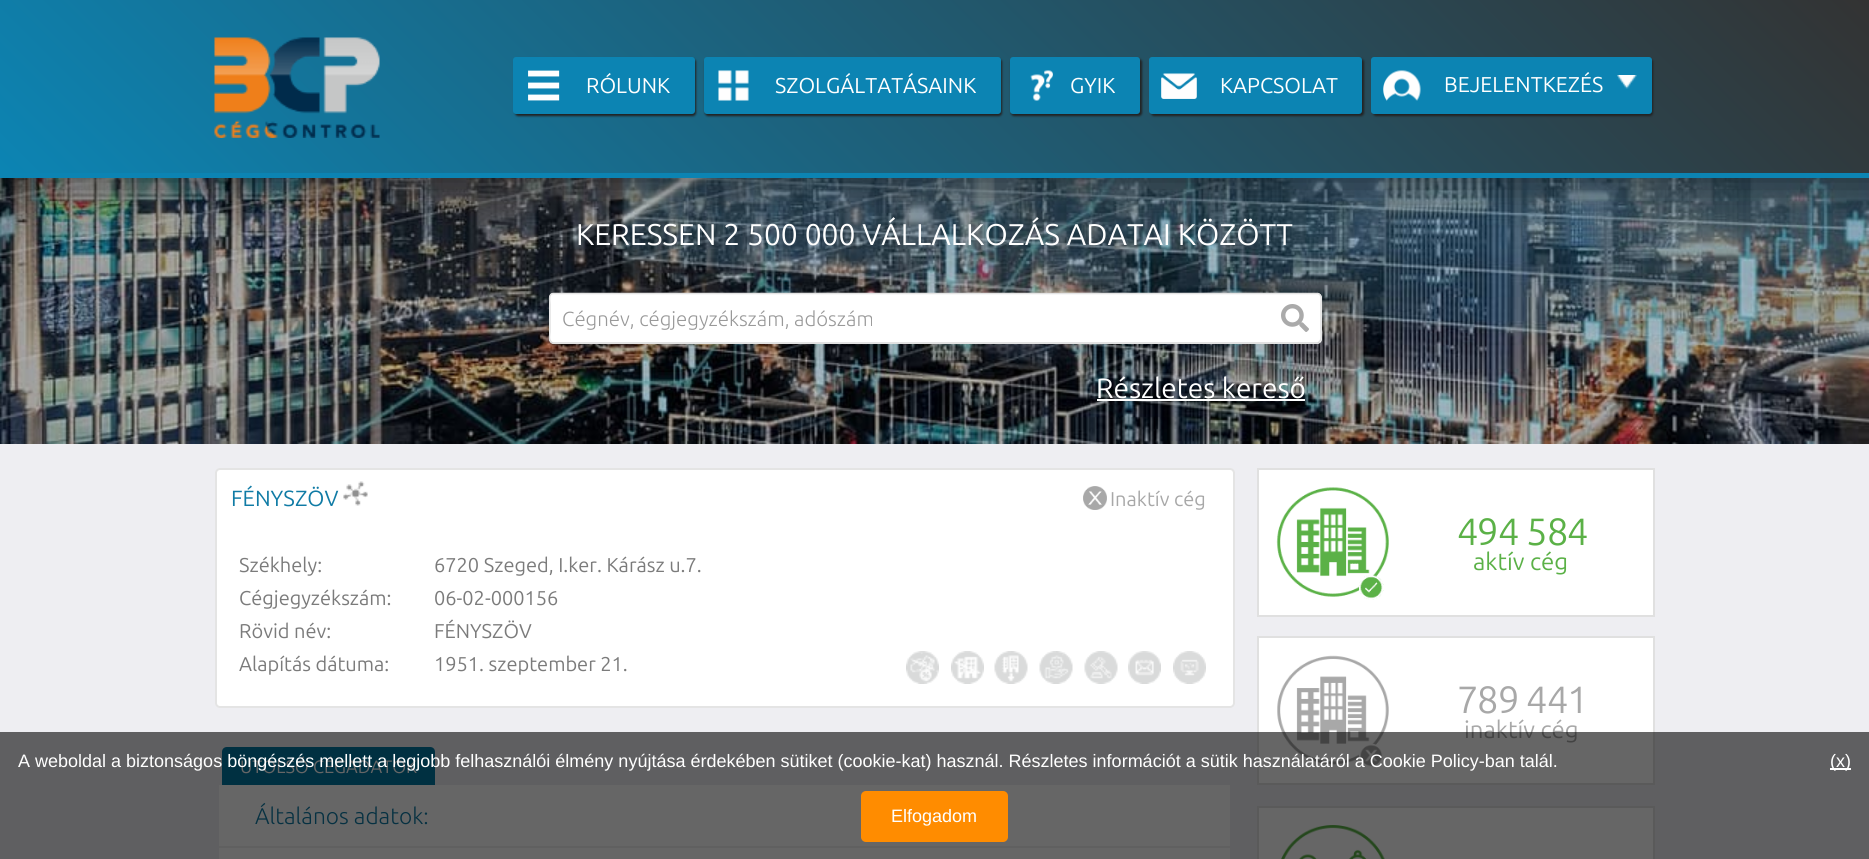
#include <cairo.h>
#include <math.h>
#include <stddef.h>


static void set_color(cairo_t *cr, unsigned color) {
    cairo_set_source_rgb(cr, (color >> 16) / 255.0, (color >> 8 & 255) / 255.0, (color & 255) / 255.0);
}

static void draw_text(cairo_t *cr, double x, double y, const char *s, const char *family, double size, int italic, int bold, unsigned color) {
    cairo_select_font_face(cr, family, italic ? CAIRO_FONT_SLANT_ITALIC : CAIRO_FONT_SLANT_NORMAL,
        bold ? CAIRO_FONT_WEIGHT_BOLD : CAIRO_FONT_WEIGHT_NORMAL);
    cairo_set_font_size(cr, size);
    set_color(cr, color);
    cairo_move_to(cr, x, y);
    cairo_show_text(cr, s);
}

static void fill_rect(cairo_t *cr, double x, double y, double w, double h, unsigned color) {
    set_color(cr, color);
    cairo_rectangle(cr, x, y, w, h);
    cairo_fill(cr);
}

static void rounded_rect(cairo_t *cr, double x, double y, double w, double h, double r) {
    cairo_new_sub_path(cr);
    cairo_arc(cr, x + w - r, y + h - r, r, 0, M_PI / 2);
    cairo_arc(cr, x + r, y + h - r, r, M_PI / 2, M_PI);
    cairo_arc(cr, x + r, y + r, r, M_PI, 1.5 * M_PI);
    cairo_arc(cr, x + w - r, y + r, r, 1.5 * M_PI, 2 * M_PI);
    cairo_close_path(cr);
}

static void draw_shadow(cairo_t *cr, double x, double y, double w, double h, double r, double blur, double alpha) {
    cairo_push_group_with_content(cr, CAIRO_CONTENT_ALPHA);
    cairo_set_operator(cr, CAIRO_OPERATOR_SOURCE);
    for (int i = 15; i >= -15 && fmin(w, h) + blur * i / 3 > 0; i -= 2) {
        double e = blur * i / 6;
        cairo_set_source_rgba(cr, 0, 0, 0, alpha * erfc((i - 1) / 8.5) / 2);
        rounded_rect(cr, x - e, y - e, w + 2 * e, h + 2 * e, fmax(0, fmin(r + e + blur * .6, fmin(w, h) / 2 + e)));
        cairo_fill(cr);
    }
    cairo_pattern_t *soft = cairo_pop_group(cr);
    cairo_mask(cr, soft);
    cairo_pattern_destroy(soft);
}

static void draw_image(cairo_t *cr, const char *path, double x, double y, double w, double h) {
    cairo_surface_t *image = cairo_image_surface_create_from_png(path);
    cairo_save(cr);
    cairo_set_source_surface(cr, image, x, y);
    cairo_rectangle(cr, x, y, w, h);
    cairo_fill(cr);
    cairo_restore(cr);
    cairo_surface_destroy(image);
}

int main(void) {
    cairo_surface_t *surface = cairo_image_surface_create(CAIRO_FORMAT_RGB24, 1869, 859);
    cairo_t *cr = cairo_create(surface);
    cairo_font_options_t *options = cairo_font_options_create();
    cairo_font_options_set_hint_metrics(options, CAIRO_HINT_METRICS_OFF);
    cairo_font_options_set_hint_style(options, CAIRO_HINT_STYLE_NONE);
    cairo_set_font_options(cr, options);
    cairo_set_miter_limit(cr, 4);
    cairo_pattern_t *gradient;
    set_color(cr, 0xEEEEF2);
    cairo_paint(cr);
    draw_image(cr, "assets/img8.png", 0, 178, 1869, 266);
    set_color(cr, 0x000000);
    draw_shadow(cr, -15, 164, 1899, 30, 0, 22.5, 0.45);
    gradient = cairo_pattern_create_linear(424, 597, 1445, -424);
    cairo_pattern_add_color_stop_rgba(gradient, 0, 0.047, 0.518, 0.702, 1);
    cairo_pattern_add_color_stop_rgba(gradient, 1, 0.2, 0.2, 0.2, 1);
    cairo_set_source(cr, gradient);
    cairo_pattern_destroy(gradient);
    cairo_rectangle(cr, 0, 0, 1869, 173);
    cairo_fill(cr);
    fill_rect(cr, 0, 173, 1869, 5, 0x0C84B3);
    draw_image(cr, "assets/img1.png", 214, 37, 166, 101);
    set_color(cr, 0x222222);
    draw_shadow(cr, 515, 59, 181, 57, 3, 1, 1);
    set_color(cr, 0x0C84B3);
    rounded_rect(cr, 513, 57, 182, 57, 3);
    cairo_fill(cr);
    draw_image(cr, "assets/img2.png", 528, 70, 32, 31);
    draw_text(cr, 586, 93, "RÓLUNK", "Ubuntu", 21.5, 0, 0, 0xFFFFFF);
    set_color(cr, 0x222222);
    draw_shadow(cr, 705, 59, 297, 57, 3, 1, 1);
    set_color(cr, 0x0C84B3);
    rounded_rect(cr, 704, 57, 297, 57, 3);
    cairo_fill(cr);
    draw_image(cr, "assets/img3.png", 718, 70, 31, 31);
    draw_text(cr, 775, 93, "SZOLGÁLTATÁSAINK", "Ubuntu", 21.5, 0, 0, 0xFFFFFF);
    set_color(cr, 0x222222);
    draw_shadow(cr, 1011, 59, 131, 57, 3, 1, 1);
    set_color(cr, 0x0C84B3);
    rounded_rect(cr, 1010, 57, 130, 57, 3);
    cairo_fill(cr);
    draw_image(cr, "assets/img4.png", 1030, 70, 23, 31);
    draw_text(cr, 1070, 93, "GYIK", "Ubuntu", 21.5, 0, 0, 0xFFFFFF);
    set_color(cr, 0x222222);
    draw_shadow(cr, 1151, 59, 213, 57, 3, 1, 1);
    set_color(cr, 0x0C84B3);
    rounded_rect(cr, 1149, 57, 213, 57, 3);
    cairo_fill(cr);
    draw_image(cr, "assets/img5.png", 1161, 73, 36, 26);
    draw_text(cr, 1220, 93, "KAPCSOLAT", "Ubuntu", 21.5, 0, 0, 0xFFFFFF);
    set_color(cr, 0x222222);
    draw_shadow(cr, 1373, 59, 280, 57, 3, 1, 1);
    set_color(cr, 0x0C84B3);
    rounded_rect(cr, 1371, 57, 281, 57, 3);
    cairo_fill(cr);
    draw_image(cr, "assets/img6.png", 1383, 70, 38, 31);
    draw_text(cr, 1444, 92, "BEJELENTKEZÉS", "Ubuntu", 21.5, 0, 0, 0xFFFFFF);
    draw_image(cr, "assets/img7.png", 1617, 75, 20, 14);
    draw_text(cr, 576, 245, "KERESSEN 2 500 000 VÁLLALKOZÁS ADATAI KÖZÖTT", "Ubuntu", 30, 0, 0, 0xFFFFFF);
    rounded_rect(cr, 549, 293, 773, 51, 5);
    cairo_fill(cr);
    cairo_new_path(cr);
    cairo_move_to(cr, 1319.5, 341.5);
    cairo_curve_to(cr, 1319, 342.5, 1318, 343, 1317, 343);
    cairo_line_to(cr, 553.5, 343);
    cairo_curve_to(cr, 552.5, 343, 551.5, 342.5, 551, 341.5);
    set_color(cr, 0xD7D7D7);
    cairo_set_line_width(cr, 1.5);
    cairo_stroke(cr);
    cairo_new_path(cr);
    cairo_move_to(cr, 551, 341.5);
    cairo_curve_to(cr, 548.5, 339.5, 550, 333.5, 550, 332);
    cairo_line_to(cr, 550, 304);
    cairo_curve_to(cr, 550, 301.5, 548, 294, 553, 293.5);
    cairo_line_to(cr, 1317.5, 293.5);
    cairo_curve_to(cr, 1322.5, 294, 1321, 301.5, 1321, 304);
    cairo_line_to(cr, 1321, 332);
    cairo_curve_to(cr, 1321, 333.5, 1322, 339.5, 1319.5, 341.5);
    set_color(cr, 0xE2E2E2);
    cairo_stroke(cr);
    draw_text(cr, 562, 326, "Cégnév, cégjegyzékszám, adószám", "Ubuntu Light", 20.4, 0, 0, 0x999999);
    draw_image(cr, "assets/img9.png", 1281, 304, 28, 28);
    draw_text(cr, 1096, 398, "Részletes kereső", "Ubuntu", 28, 0, 0, 0xFFFFFF);
    fill_rect(cr, 1097, 399, 208, 2, 0xFFFFFF);
    rounded_rect(cr, 216, 469, 1018, 238, 4);
    cairo_fill_preserve(cr);
    set_color(cr, 0xE4E4E4);
    cairo_set_line_width(cr, 2);
    cairo_stroke(cr);
    draw_text(cr, 231, 506, "FÉNYSZÖV", "Ubuntu", 22, 0, 0, 0x107BA5);
    draw_image(cr, "assets/img10.png", 343, 481, 25, 25);
    draw_image(cr, "assets/img11.png", 1083, 486, 24, 24);
    draw_text(cr, 1110, 506, "Inaktív cég", "Ubuntu", 20, 0, 0, 0xA8A8A8);
    draw_text(cr, 239, 572, "Székhely:", "Ubuntu", 20, 0, 0, 0x7B7B7B);
    draw_text(cr, 434, 572, "6720 Szeged, I.ker. Kárász u.7.", "Ubuntu", 20, 0, 0, 0x7B7B7B);
    draw_text(cr, 239, 605, "Cégjegyzékszám:", "Ubuntu", 20, 0, 0, 0x7B7B7B);
    draw_text(cr, 434, 605, "06-02-000156", "Ubuntu", 20, 0, 0, 0x7B7B7B);
    draw_text(cr, 239, 638, "Rövid név:", "Ubuntu", 20, 0, 0, 0x7B7B7B);
    draw_text(cr, 434, 638, "FÉNYSZÖV", "Ubuntu", 20, 0, 0, 0x7B7B7B);
    draw_text(cr, 239, 671, "Alapítás dátuma:", "Ubuntu", 20, 0, 0, 0x7B7B7B);
    draw_text(cr, 434, 671, "1951. szeptember 21.", "Ubuntu", 20, 0, 0, 0x7B7B7B);
    draw_image(cr, "assets/img12.png", 906, 651, 33, 33);
    draw_image(cr, "assets/img13.png", 951, 651, 33, 33);
    draw_image(cr, "assets/img14.png", 994, 651, 34, 33);
    draw_image(cr, "assets/img15.png", 1039, 651, 34, 33);
    draw_image(cr, "assets/img16.png", 1084, 651, 34, 33);
    draw_image(cr, "assets/img17.png", 1128, 651, 33, 33);
    draw_image(cr, "assets/img18.png", 1173, 651, 33, 33);
    set_color(cr, 0x0077A3);
    cairo_new_path(cr);
    cairo_move_to(cr, 227, 747);
    cairo_line_to(cr, 430, 747);
    cairo_curve_to(cr, 433, 747, 435, 749, 435, 752);
    cairo_line_to(cr, 435, 785);
    cairo_line_to(cr, 222, 785);
    cairo_line_to(cr, 222, 752);
    cairo_curve_to(cr, 222, 749, 224, 747, 227, 747);
    cairo_close_path(cr);
    cairo_fill(cr);
    draw_text(cr, 240, 773, "UTOLSÓ CÉGADATOK", "Ubuntu", 18, 0, 0, 0xFFFFFF);
    fill_rect(cr, 219, 785, 1011, 74, 0xFFFFFF);
    draw_text(cr, 255, 824, "Általános adatok:", "Ubuntu Light", 22.75, 0, 0, 0x107BA5);
    fill_rect(cr, 219, 846, 1011, 2, 0xF1F1F1);
    set_color(cr, 0xFFFFFF);
    cairo_rectangle(cr, 1258, 469, 396, 147);
    cairo_fill_preserve(cr);
    set_color(cr, 0xE0E0E0);
    cairo_stroke(cr);
    draw_image(cr, "assets/img19.png", 1276, 487, 113, 113);
    draw_text(cr, 1457, 545, "4", "Ubuntu", 38, 0, 0, 0x5BB147);
    draw_text(cr, 1477, 545, "9", "Ubuntu", 38, 0, 0, 0x5BB147);
    draw_text(cr, 1498, 545, "4", "Ubuntu", 38, 0, 0, 0x5BB147);
    draw_text(cr, 1526, 545, "5", "Ubuntu", 38, 0, 0, 0x5BB147);
    draw_text(cr, 1547, 545, "8", "Ubuntu", 38, 0, 0, 0x5BB147);
    draw_text(cr, 1567, 545, "4", "Ubuntu", 38, 0, 0, 0x5BB147);
    draw_text(cr, 1473, 570, "aktív cég", "Ubuntu", 24, 0, 0, 0x5BB147);
    set_color(cr, 0xFFFFFF);
    cairo_rectangle(cr, 1258, 637, 396, 147);
    cairo_fill_preserve(cr);
    set_color(cr, 0xE0E0E0);
    cairo_stroke(cr);
    draw_image(cr, "assets/img20.png", 1277, 655, 112, 112);
    draw_text(cr, 1457, 713, "7", "Ubuntu", 38, 0, 0, 0xA8A8A8);
    draw_text(cr, 1477, 713, "8", "Ubuntu", 38, 0, 0, 0xA8A8A8);
    draw_text(cr, 1498, 713, "9", "Ubuntu", 38, 0, 0, 0xA8A8A8);
    draw_text(cr, 1526, 713, "4", "Ubuntu", 38, 0, 0, 0xA8A8A8);
    draw_text(cr, 1547, 713, "4", "Ubuntu", 38, 0, 0, 0xA8A8A8);
    draw_text(cr, 1567, 713, "1", "Ubuntu", 38, 0, 0, 0xA8A8A8);
    draw_text(cr, 1464, 738, "inaktív cég", "Ubuntu", 24, 0, 0, 0xA8A8A8);
    set_color(cr, 0xFFFFFF);
    cairo_rectangle(cr, 1258, 807, 396, 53);
    cairo_fill_preserve(cr);
    set_color(cr, 0xE0E0E0);
    cairo_stroke(cr);
    draw_image(cr, "assets/img21.png", 1281, 825, 104, 34);
    cairo_set_source_rgba(cr, 0, 0, 0, 0.6);
    cairo_rectangle(cr, 0, 732, 1869, 127);
    cairo_fill(cr);
    draw_text(cr, 18, 767, "A weboldal a biztonságos böngészés mellett a legjobb felhasználói élmény nyújtása érdekében sütiket (cookie-kat) használ. Részletes információt a sütik használatáról a Cookie Policy-ban talál.", "Liberation Sans", 18, 0, 0, 0xFFFFFF);
    fill_rect(cr, 1830, 768, 21, 2, 0xFFFFFF);
    draw_text(cr, 1830, 767, "(x)", "Liberation Sans", 18, 0, 0, 0xFFFFFF);
    set_color(cr, 0xFF8C00);
    rounded_rect(cr, 861, 791, 147, 51, 5);
    cairo_fill(cr);
    draw_text(cr, 891, 822, "Elfogadom", "Liberation Sans", 18, 0, 0, 0xFFFFFF);
    cairo_surface_write_to_png(surface, "output.png");
    cairo_font_options_destroy(options);
    cairo_destroy(cr);
    cairo_surface_destroy(surface);
    return 0;
}
